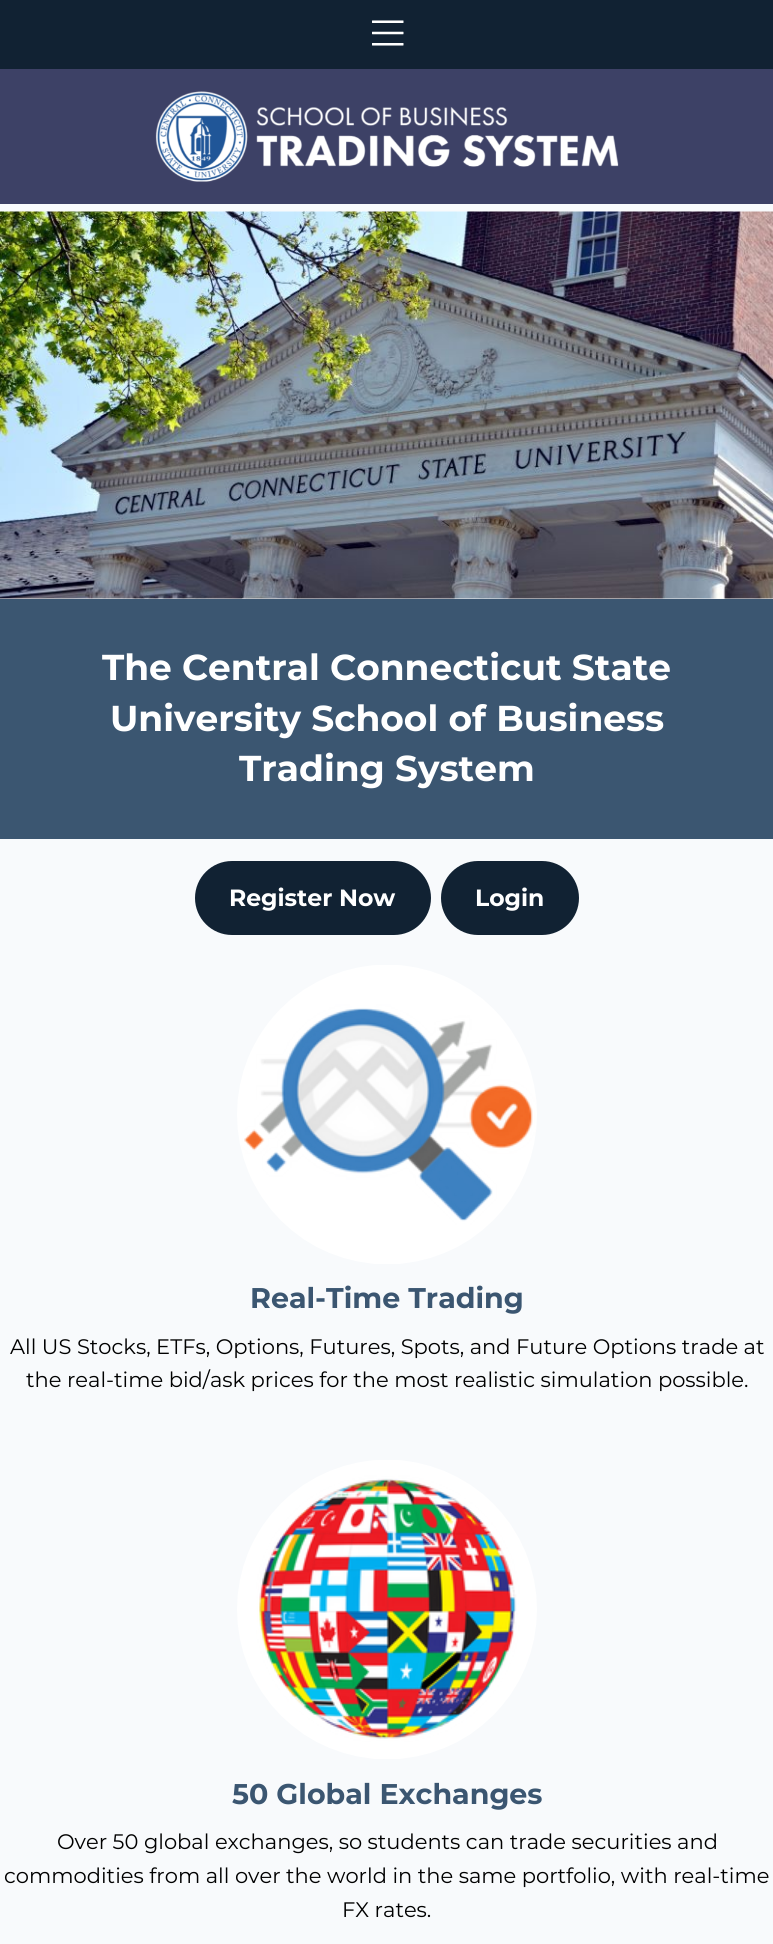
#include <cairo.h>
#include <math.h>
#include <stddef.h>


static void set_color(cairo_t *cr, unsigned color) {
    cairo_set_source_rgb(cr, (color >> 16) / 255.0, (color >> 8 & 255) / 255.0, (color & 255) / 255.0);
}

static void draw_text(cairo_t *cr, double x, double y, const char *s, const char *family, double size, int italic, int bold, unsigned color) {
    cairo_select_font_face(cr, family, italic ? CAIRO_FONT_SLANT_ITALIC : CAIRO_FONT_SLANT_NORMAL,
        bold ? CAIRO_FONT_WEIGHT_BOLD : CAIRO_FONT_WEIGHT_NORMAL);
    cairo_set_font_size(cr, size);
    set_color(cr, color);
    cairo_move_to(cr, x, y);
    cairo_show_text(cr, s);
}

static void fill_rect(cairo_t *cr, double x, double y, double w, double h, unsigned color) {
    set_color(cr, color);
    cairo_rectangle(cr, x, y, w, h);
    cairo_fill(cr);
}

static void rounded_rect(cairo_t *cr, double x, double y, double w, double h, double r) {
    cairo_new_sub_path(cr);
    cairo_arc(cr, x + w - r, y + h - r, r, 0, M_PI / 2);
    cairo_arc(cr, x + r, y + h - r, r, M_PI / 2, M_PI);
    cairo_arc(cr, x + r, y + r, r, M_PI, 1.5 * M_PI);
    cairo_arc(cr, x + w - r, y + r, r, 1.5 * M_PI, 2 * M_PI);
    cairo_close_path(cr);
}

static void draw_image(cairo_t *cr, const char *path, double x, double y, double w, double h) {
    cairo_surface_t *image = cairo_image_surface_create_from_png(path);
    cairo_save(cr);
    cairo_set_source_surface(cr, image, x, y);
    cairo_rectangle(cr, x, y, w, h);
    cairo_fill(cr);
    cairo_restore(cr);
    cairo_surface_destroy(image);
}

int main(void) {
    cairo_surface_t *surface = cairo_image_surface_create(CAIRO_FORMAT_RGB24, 773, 1944);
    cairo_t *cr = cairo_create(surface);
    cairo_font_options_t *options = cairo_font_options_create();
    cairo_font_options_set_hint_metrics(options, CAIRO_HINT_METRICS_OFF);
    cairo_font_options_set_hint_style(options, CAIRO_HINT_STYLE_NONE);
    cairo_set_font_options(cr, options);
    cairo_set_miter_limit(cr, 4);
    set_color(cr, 0xF8FAFC);
    cairo_paint(cr);
    fill_rect(cr, 0, 0, 773, 69, 0x112233);
    draw_image(cr, "assets/img1.png", 372, 20, 32, 26);
    fill_rect(cr, 0, 69, 773, 135, 0x3D4166);
    draw_image(cr, "assets/img2.png", 155, 91, 464, 91);
    draw_image(cr, "assets/img3.png", 0, 211, 773, 388);
    draw_text(cr, 378, 230, "R", "Montserrat", 24, 0, 0, 0x67792F);
    fill_rect(cr, 0, 599, 773, 240, 0x3B5671);
    draw_text(cr, 102, 680, "The Central Connecticut State", "Montserrat", 36, 0, 1, 0xFFFFFF);
    draw_text(cr, 110, 731, "University School of Business", "Montserrat", 36, 0, 1, 0xFFFFFF);
    draw_text(cr, 239, 781, "Trading System", "Montserrat", 36, 0, 1, 0xFFFFFF);
    set_color(cr, 0x112233);
    rounded_rect(cr, 195, 861, 236, 74, 37);
    cairo_fill(cr);
    draw_text(cr, 229, 906, "Register Now", "Montserrat", 23.5, 0, 1, 0xFFFFFF);
    set_color(cr, 0x112233);
    rounded_rect(cr, 441, 861, 138, 74, 37);
    cairo_fill(cr);
    draw_text(cr, 475, 906, "Login", "Montserrat", 23.5, 0, 1, 0xFFFFFF);
    draw_image(cr, "assets/img4.png", 237, 965, 300, 299);
    draw_text(cr, 250, 1308, "Real-Time Trading", "Montserrat", 28.5, 0, 1, 0x3B5671);
    draw_text(cr, 10, 1354, "All US Stocks, ETFs, Options, Futures, Spots, and Future Options trade at", "Montserrat", 21, 0, 0, 0x000000);
    draw_text(cr, 26, 1387, "the real-time bid/ask prices for the most realistic simulation possible.", "Montserrat", 21, 0, 0, 0x000000);
    draw_image(cr, "assets/img5.png", 237, 1460, 300, 299);
    draw_text(cr, 232, 1804, "50 Global Exchanges", "Montserrat", 28.5, 0, 1, 0x3B5671);
    draw_text(cr, 57, 1849, "Over 50 global exchanges, so students can trade securities and", "Montserrat", 21, 0, 0, 0x000000);
    draw_text(cr, 4, 1883, "commodities from all over the world in the same portfolio, with real-time", "Montserrat", 21, 0, 0, 0x000000);
    draw_text(cr, 342, 1917, "FX rates.", "Montserrat", 21, 0, 0, 0x000000);
    cairo_surface_write_to_png(surface, "output.png");
    cairo_font_options_destroy(options);
    cairo_destroy(cr);
    cairo_surface_destroy(surface);
    return 0;
}
